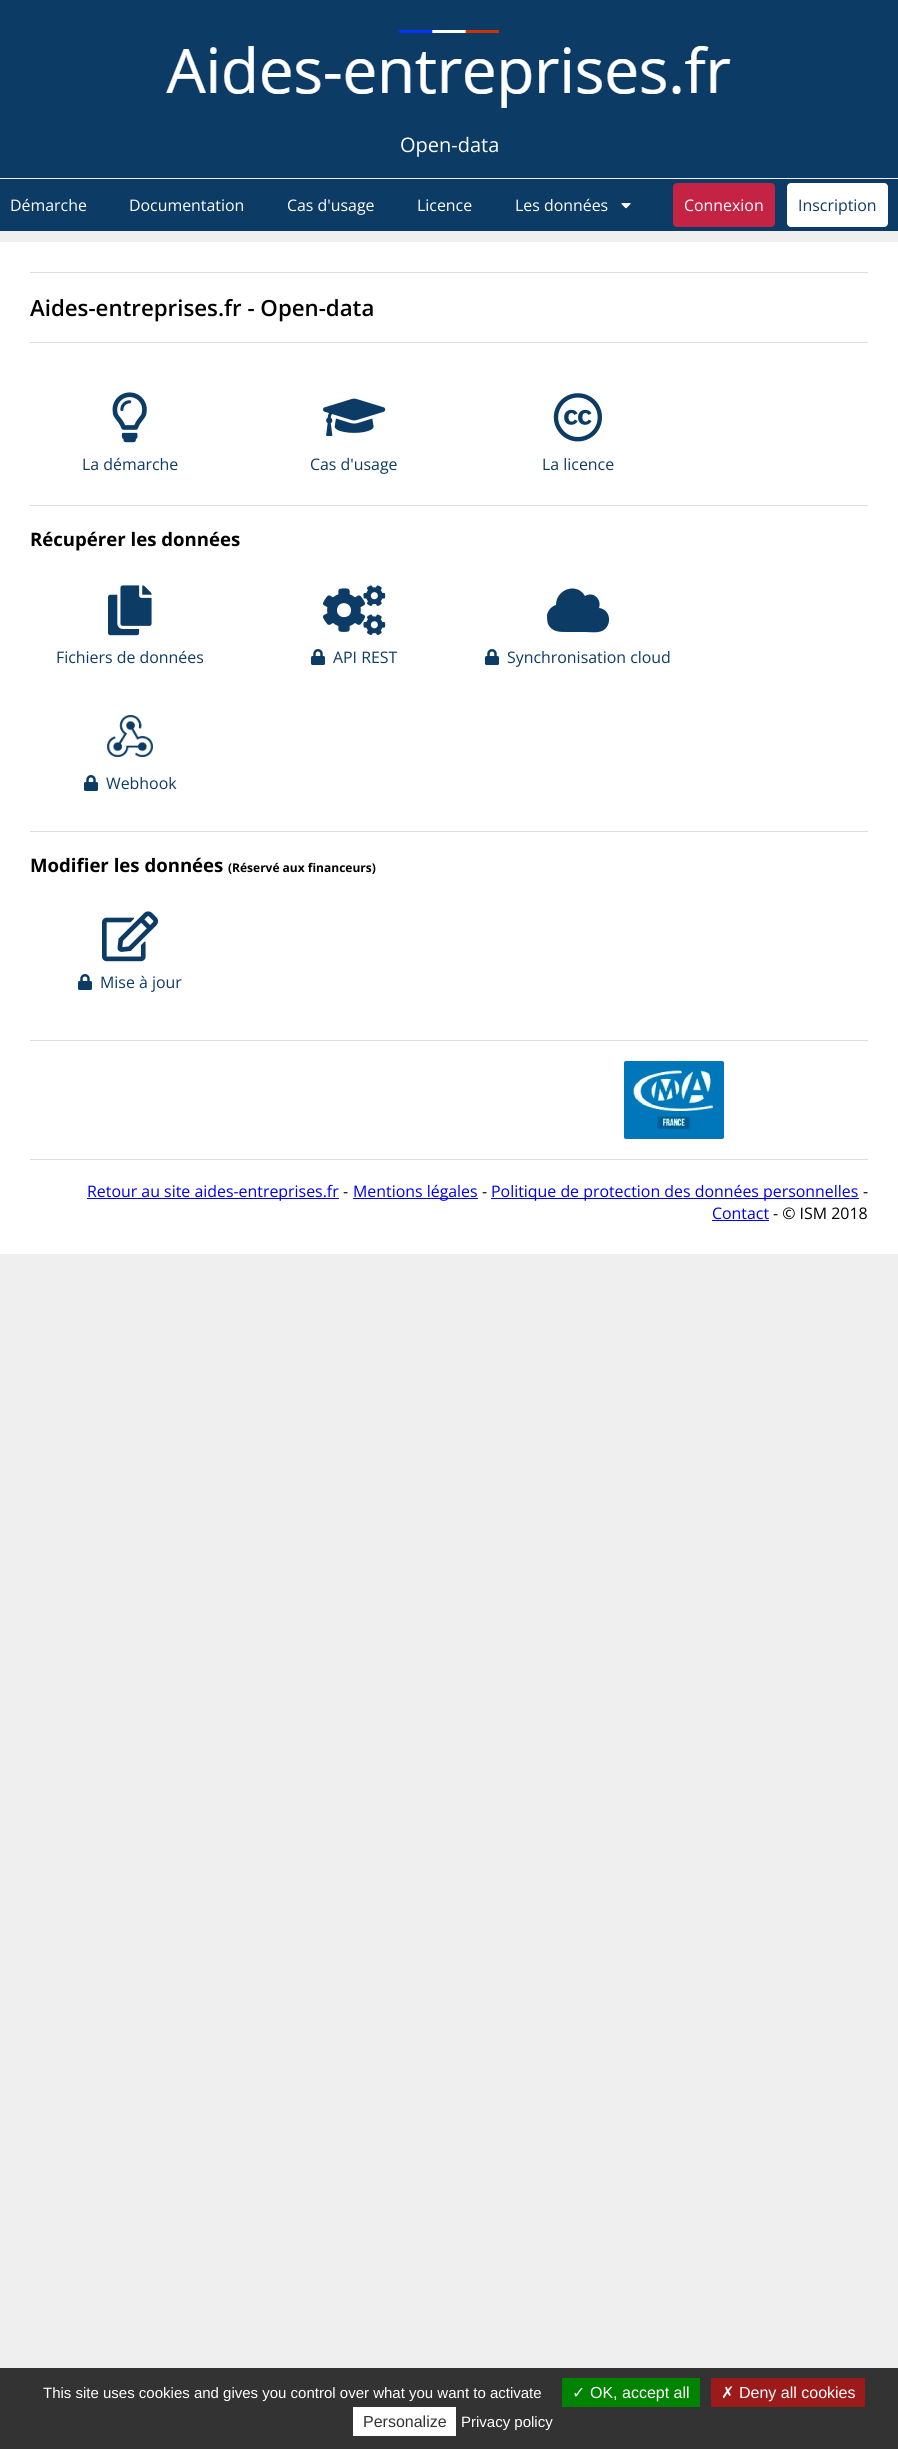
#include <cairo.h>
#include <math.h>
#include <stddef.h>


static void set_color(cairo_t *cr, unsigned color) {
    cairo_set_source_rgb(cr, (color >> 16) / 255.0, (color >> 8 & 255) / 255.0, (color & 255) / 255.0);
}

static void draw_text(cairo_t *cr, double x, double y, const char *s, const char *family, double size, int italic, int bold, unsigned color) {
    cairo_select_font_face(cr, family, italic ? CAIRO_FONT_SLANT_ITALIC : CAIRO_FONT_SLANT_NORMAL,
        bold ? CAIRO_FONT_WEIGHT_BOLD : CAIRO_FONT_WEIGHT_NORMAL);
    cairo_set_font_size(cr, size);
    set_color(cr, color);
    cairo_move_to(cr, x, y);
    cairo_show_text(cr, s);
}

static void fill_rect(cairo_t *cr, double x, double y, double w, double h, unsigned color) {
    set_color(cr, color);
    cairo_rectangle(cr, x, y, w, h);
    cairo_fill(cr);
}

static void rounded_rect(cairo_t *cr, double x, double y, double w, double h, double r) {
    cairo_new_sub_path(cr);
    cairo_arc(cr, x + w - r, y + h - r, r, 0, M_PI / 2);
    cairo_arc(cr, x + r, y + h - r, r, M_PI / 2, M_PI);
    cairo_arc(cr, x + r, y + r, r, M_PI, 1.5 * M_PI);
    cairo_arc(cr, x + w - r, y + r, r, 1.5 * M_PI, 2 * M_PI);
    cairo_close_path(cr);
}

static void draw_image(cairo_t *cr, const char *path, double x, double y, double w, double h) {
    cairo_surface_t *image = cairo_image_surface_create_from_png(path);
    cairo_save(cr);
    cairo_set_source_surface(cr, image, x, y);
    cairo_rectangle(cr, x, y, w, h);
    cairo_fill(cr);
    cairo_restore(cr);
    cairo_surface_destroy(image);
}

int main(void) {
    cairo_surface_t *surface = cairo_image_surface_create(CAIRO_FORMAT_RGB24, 898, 2449);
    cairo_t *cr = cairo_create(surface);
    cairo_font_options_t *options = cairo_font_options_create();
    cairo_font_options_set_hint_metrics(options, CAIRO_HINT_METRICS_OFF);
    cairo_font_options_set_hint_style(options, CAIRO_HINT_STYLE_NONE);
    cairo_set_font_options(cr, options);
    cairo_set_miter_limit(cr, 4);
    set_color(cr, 0xEFEFEF);
    cairo_paint(cr);
    fill_rect(cr, 0, 0, 898, 178, 0x0C3B65);
    draw_image(cr, "assets/img1.png", 166, 30, 565, 78);
    draw_text(cr, 400, 152, "Open-data", "Open Sans", 20, 0, 0, 0xFFFFFF);
    fill_rect(cr, 0, 179, 898, 52, 0x0C3B65);
    draw_text(cr, 10, 211, "Démarche", "Open Sans", 15.9, 0, 0, 0xFFFFFF);
    draw_text(cr, 129, 211, "Documentation", "Open Sans", 15.9, 0, 0, 0xFFFFFF);
    draw_text(cr, 287, 211, "Cas d'usage", "Open Sans", 15.9, 0, 0, 0xFFFFFF);
    draw_text(cr, 417, 211, "Licence", "Open Sans", 15.9, 0, 0, 0xFFFFFF);
    draw_text(cr, 515, 211, "Les données", "Open Sans", 15.9, 0, 0, 0xFFFFFF);
    draw_image(cr, "assets/img2.png", 621, 203, 10, 6);
    set_color(cr, 0xC52343);
    rounded_rect(cr, 673, 183, 102, 44, 4);
    cairo_fill(cr);
    draw_text(cr, 684, 211, "Connexion", "Open Sans", 15.9, 0, 0, 0xFFFFFF);
    rounded_rect(cr, 787, 183, 101, 44, 4);
    cairo_fill(cr);
    draw_text(cr, 798, 211, "Inscription", "Open Sans", 15.9, 0, 0, 0x0C3B65);
    fill_rect(cr, 0, 242, 898, 1012, 0xFFFFFF);
    fill_rect(cr, 30, 272, 838, 1, 0xDDDDDD);
    fill_rect(cr, 30, 342, 838, 1, 0xDDDDDD);
    draw_text(cr, 30, 316, "Aides-entreprises.fr - Open-data", "Open Sans SemiBold", 22.25, 0, 0, 0x000000);
    draw_image(cr, "assets/img3.png", 112, 392, 35, 51);
    draw_text(cr, 82, 470, "La démarche", "Open Sans", 15.9, 0, 0, 0x0C3B65);
    draw_image(cr, "assets/img4.png", 323, 398, 63, 38);
    draw_text(cr, 310, 470, "Cas d'usage", "Open Sans", 15.9, 0, 0, 0x0C3B65);
    draw_image(cr, "assets/img5.png", 553, 393, 49, 49);
    draw_text(cr, 542, 470, "La licence", "Open Sans", 15.9, 0, 0, 0x0C3B65);
    fill_rect(cr, 30, 505, 838, 1, 0xDDDDDD);
    draw_text(cr, 30, 546, "Récupérer les données", "Open Sans", 18.6, 0, 1, 0x000000);
    draw_image(cr, "assets/img6.png", 108, 585, 44, 51);
    draw_text(cr, 56, 663, "Fichiers de données", "Open Sans", 15.9, 0, 0, 0x0C3B65);
    draw_image(cr, "assets/img7.png", 323, 585, 63, 50);
    draw_image(cr, "assets/img8.png", 311, 649, 14, 16);
    draw_text(cr, 333, 663, "API REST", "Open Sans", 15.9, 0, 0, 0x0C3B65);
    cairo_new_path(cr);
    cairo_move_to(cr, 599, 608);
    cairo_curve_to(cr, 602, 599, 593, 591, 585, 596);
    cairo_curve_to(cr, 577, 582, 556, 589, 556, 605);
    cairo_curve_to(cr, 552, 606, 548, 610, 547, 615);
    cairo_curve_to(cr, 547, 618, 547, 621, 548, 624);
    cairo_curve_to(cr, 552, 632, 559, 632, 567, 632);
    cairo_line_to(cr, 585, 632);
    cairo_curve_to(cr, 592, 632, 601, 634, 606, 628);
    cairo_curve_to(cr, 612, 621, 609, 609, 599, 608);
    cairo_close_path(cr);
    cairo_fill(cr);
    draw_image(cr, "assets/img8.png", 485, 649, 14, 16);
    draw_text(cr, 507, 663, "Synchronisation cloud", "Open Sans", 15.9, 0, 0, 0x0C3B65);
    draw_image(cr, "assets/img9.png", 107, 715, 46, 42);
    draw_image(cr, "assets/img8.png", 84, 775, 14, 16);
    draw_text(cr, 106, 789, "Webhook", "Open Sans", 15.9, 0, 0, 0x0C3B65);
    fill_rect(cr, 30, 831, 838, 1, 0xDDDDDD);
    draw_text(cr, 30, 872, "Modifier les données", "Open Sans", 18.6, 0, 1, 0x000000);
    draw_text(cr, 228, 872, "(Réservé aux financeurs)", "Open Sans", 12, 0, 1, 0x000000);
    draw_image(cr, "assets/img10.png", 102, 911, 56, 51);
    draw_image(cr, "assets/img8.png", 78, 974, 14, 16);
    draw_text(cr, 100, 988, "Mise à jour", "Open Sans", 15.9, 0, 0, 0x0C3B65);
    fill_rect(cr, 30, 1040, 838, 1, 0xDDDDDD);
    fill_rect(cr, 30, 1159, 838, 1, 0xDDDDDD);
    draw_image(cr, "assets/img11.png", 624, 1061, 100, 78);
    fill_rect(cr, 87, 1198, 252, 1, 0x0000EE);
    draw_text(cr, 87, 1197, "Retour au site aides-entreprises.fr", "Open Sans", 15.9, 0, 0, 0x0000EE);
    draw_text(cr, 343, 1197, "-", "Open Sans", 15.9, 0, 0, 0x000000);
    fill_rect(cr, 353, 1198, 125, 1, 0x0000EE);
    draw_text(cr, 353, 1197, "Mentions légales", "Open Sans", 15.9, 0, 0, 0x0000EE);
    draw_text(cr, 482, 1197, "-", "Open Sans", 15.9, 0, 0, 0x000000);
    fill_rect(cr, 491, 1198, 368, 1, 0x0000EE);
    draw_text(cr, 491, 1197, "Politique de protection des données personnelles", "Open Sans", 15.9, 0, 0, 0x0000EE);
    draw_text(cr, 863, 1197, "-", "Open Sans", 15.9, 0, 0, 0x000000);
    draw_text(cr, 712, 1219, "Contact", "Open Sans", 15.9, 0, 0, 0x0000EE);
    fill_rect(cr, 712, 1220, 57, 1, 0x0000EE);
    draw_text(cr, 773, 1219, "- © ISM 2018", "Open Sans", 15.9, 0, 0, 0x000000);
    fill_rect(cr, 0, 2368, 898, 81, 0x333333);
    draw_text(cr, 43, 2398, "This site uses cookies and gives you control over what you want to activate", "Liberation Sans", 15, 0, 0, 0xFFFFFF);
    fill_rect(cr, 562, 2378, 138, 29, 0x008300);
    draw_text(cr, 572, 2398, "✓", "DejaVu Sans", 16, 0, 0, 0xFFFFFF);
    draw_text(cr, 590, 2398, "OK, accept all", "Liberation Sans", 16, 0, 0, 0xFFFFFF);
    fill_rect(cr, 711, 2378, 154, 29, 0x9C1A1A);
    draw_text(cr, 721, 2398, "✗", "DejaVu Sans", 16, 0, 0, 0xFFFFFF);
    draw_text(cr, 739, 2398, "Deny all cookies", "Liberation Sans", 16, 0, 0, 0xFFFFFF);
    fill_rect(cr, 353, 2407, 103, 29, 0xFFFFFF);
    draw_text(cr, 363, 2427, "Personalize", "Liberation Sans", 16, 0, 0, 0x333333);
    draw_text(cr, 461, 2427, "Privacy policy", "Liberation Sans", 15, 0, 0, 0xFFFFFF);
    cairo_surface_write_to_png(surface, "output.png");
    cairo_font_options_destroy(options);
    cairo_destroy(cr);
    cairo_surface_destroy(surface);
    return 0;
}
